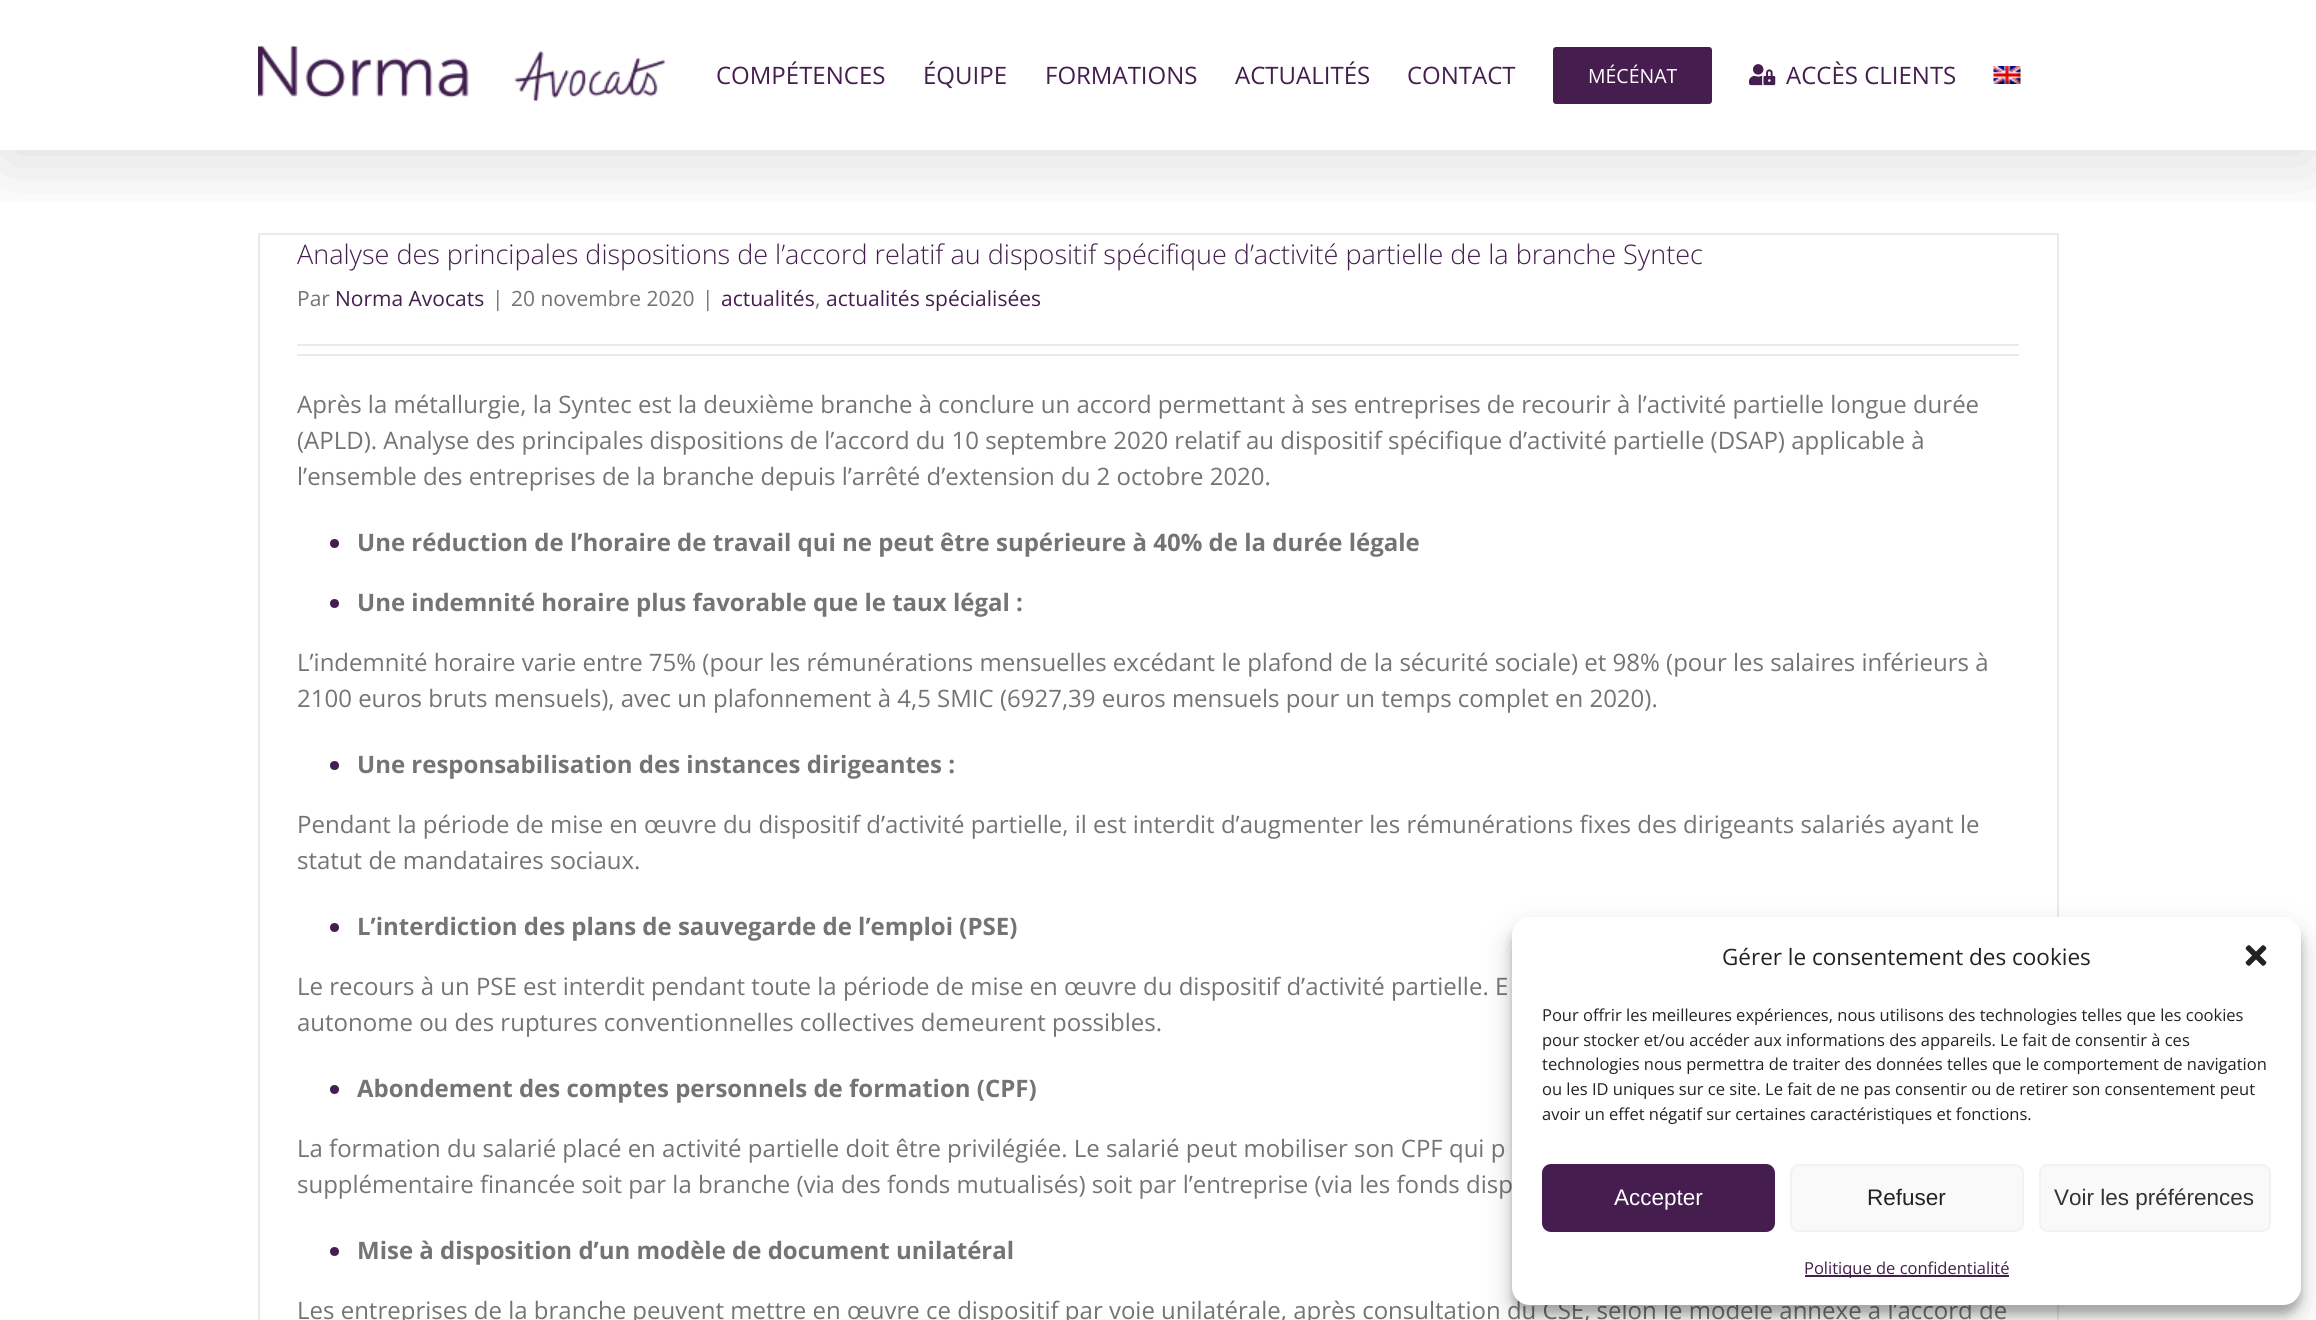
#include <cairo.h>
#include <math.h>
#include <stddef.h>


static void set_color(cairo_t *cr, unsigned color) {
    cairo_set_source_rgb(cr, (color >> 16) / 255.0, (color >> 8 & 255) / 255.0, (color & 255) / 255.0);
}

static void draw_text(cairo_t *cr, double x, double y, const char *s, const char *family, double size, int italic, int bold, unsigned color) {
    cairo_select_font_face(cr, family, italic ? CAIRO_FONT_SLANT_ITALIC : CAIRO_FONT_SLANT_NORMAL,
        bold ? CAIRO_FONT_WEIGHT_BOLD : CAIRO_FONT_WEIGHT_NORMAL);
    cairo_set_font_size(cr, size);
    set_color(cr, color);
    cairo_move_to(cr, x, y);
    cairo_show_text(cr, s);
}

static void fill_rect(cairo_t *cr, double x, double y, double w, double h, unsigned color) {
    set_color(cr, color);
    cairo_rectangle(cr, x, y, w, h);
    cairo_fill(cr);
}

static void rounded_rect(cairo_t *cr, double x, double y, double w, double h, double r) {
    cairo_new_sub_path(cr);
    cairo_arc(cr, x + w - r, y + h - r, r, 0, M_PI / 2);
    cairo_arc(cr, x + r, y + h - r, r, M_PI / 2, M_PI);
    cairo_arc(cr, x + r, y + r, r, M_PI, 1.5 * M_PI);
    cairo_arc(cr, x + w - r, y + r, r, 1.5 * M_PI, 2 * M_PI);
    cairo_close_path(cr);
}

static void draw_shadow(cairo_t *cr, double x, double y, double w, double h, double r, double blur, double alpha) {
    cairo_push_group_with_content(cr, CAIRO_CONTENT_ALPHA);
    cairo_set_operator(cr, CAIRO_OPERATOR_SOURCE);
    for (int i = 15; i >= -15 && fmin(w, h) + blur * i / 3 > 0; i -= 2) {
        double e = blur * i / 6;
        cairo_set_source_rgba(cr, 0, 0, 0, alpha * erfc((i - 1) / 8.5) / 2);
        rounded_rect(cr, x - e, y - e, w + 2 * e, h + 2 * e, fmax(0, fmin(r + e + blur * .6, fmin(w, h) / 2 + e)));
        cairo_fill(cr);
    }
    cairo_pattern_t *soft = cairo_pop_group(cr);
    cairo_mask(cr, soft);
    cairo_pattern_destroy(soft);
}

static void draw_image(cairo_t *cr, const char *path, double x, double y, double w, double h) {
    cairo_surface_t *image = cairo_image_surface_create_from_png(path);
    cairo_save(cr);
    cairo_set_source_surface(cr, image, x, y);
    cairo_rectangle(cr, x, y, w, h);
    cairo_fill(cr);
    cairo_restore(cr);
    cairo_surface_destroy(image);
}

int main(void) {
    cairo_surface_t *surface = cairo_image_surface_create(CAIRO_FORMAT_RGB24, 2316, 1320);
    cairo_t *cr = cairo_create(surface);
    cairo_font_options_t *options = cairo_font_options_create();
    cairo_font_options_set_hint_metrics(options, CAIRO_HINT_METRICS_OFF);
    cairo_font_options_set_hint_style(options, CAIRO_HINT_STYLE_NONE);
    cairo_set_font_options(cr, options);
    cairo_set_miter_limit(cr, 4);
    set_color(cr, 0xFFFFFF);
    cairo_paint(cr);
    fill_rect(cr, 258, 233, 1800, 2, 0xEBEAEA);
    fill_rect(cr, 2057, 233, 2, 1087, 0xEBEAEA);
    fill_rect(cr, 258, 233, 2, 1087, 0xEBEAEA);
    cairo_save(cr);
    cairo_rectangle(cr, 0, 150, 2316, 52);
    cairo_clip(cr);
    set_color(cr, 0x000000);
    draw_shadow(cr, 3, 18, 2310, 144, 0, 37.5, 0.14);
    cairo_restore(cr);
    draw_image(cr, "assets/img1.png", 258, 46, 407, 55);
    draw_text(cr, 716, 84, "COMPÉTENCES", "Open Sans", 24, 0, 0, 0x451E4F);
    draw_text(cr, 923, 84, "ÉQUIPE", "Open Sans", 24, 0, 0, 0x451E4F);
    draw_text(cr, 1045, 84, "FORMATIONS", "Open Sans", 24, 0, 0, 0x451E4F);
    draw_text(cr, 1235, 84, "ACTUALITÉS", "Open Sans", 24, 0, 0, 0x451E4F);
    draw_text(cr, 1407, 84, "CONTACT", "Open Sans", 24, 0, 0, 0x451E4F);
    rounded_rect(cr, 1553, 47, 159, 57, 3);
    cairo_fill(cr);
    draw_text(cr, 1588, 83, "MÉCÉNAT", "Open Sans", 19.5, 0, 0, 0xFFFFFF);
    draw_image(cr, "assets/img2.png", 1749, 64, 27, 22);
    draw_text(cr, 1786, 84, "ACCÈS CLIENTS", "Open Sans", 24, 0, 0, 0x451E4F);
    draw_image(cr, "assets/img3.png", 1993, 66, 28, 18);
    draw_text(cr, 297, 264, "Analyse des principales dispositions de l’accord relatif au dispositif spécifique d’activité partielle de la branche Syntec", "Open Sans Light", 27, 0, 0, 0x451E4F);
    draw_text(cr, 297, 306, "Par", "Open Sans", 21, 0, 0, 0x747474);
    draw_text(cr, 335, 306, "Norma Avocats", "Open Sans", 21, 0, 0, 0x451E4F);
    draw_text(cr, 492, 306, "|", "Open Sans", 21, 0, 0, 0x747474);
    draw_text(cr, 511, 306, "20 novembre 2020", "Open Sans", 21, 0, 0, 0x747474);
    draw_text(cr, 702, 306, "|", "Open Sans", 21, 0, 0, 0x747474);
    draw_text(cr, 721, 306, "actualités", "Open Sans", 21, 0, 0, 0x451E4F);
    draw_text(cr, 815, 306, ",", "Open Sans", 21, 0, 0, 0x747474);
    draw_text(cr, 826, 306, "actualités spécialisées", "Open Sans", 21, 0, 0, 0x451E4F);
    fill_rect(cr, 297, 344, 1722, 2, 0xEBEAEA);
    fill_rect(cr, 297, 354, 1722, 2, 0xEBEAEA);
    draw_text(cr, 297, 413, "Après la métallurgie, la Syntec est la deuxième branche à conclure un accord permettant à ses entreprises de recourir à l’activité partielle longue durée", "Open Sans", 24, 0, 0, 0x747474);
    draw_text(cr, 297, 449, "(APLD). Analyse des principales dispositions de l’accord du 10 septembre 2020 relatif au dispositif spécifique d’activité partielle (DSAP) applicable à", "Open Sans", 24, 0, 0, 0x747474);
    draw_text(cr, 297, 485, "l’ensemble des entreprises de la branche depuis l’arrêté d’extension du 2 octobre 2020.", "Open Sans", 24, 0, 0, 0x747474);
    set_color(cr, 0x451E4F);
    cairo_new_path(cr);
    cairo_arc(cr, 334.5, 543.5, 4.5, 0, 2 * M_PI);
    cairo_fill(cr);
    draw_text(cr, 357, 551, "Une réduction de l’horaire de travail qui ne peut être supérieure à 40% de la durée légale", "Open Sans", 24, 0, 1, 0x747474);
    set_color(cr, 0x451E4F);
    cairo_new_path(cr);
    cairo_arc(cr, 334.5, 603.5, 4.5, 0, 2 * M_PI);
    cairo_fill(cr);
    draw_text(cr, 357, 611, "Une indemnité horaire plus favorable que le taux légal :", "Open Sans", 24, 0, 1, 0x747474);
    draw_text(cr, 297, 671, "L’indemnité horaire varie entre 75% (pour les rémunérations mensuelles excédant le plafond de la sécurité sociale) et 98% (pour les salaires inférieurs à", "Open Sans", 24, 0, 0, 0x747474);
    draw_text(cr, 297, 707, "2100 euros bruts mensuels), avec un plafonnement à 4,5 SMIC (6927,39 euros mensuels pour un temps complet en 2020).", "Open Sans", 24, 0, 0, 0x747474);
    set_color(cr, 0x451E4F);
    cairo_new_path(cr);
    cairo_arc(cr, 334.5, 765.5, 4.5, 0, 2 * M_PI);
    cairo_fill(cr);
    draw_text(cr, 357, 773, "Une responsabilisation des instances dirigeantes :", "Open Sans", 24, 0, 1, 0x747474);
    draw_text(cr, 297, 833, "Pendant la période de mise en œuvre du dispositif d’activité partielle, il est interdit d’augmenter les rémunérations fixes des dirigeants salariés ayant le", "Open Sans", 24, 0, 0, 0x747474);
    draw_text(cr, 297, 869, "statut de mandataires sociaux.", "Open Sans", 24, 0, 0, 0x747474);
    set_color(cr, 0x451E4F);
    cairo_new_path(cr);
    cairo_arc(cr, 334.5, 927.5, 4.5, 0, 2 * M_PI);
    cairo_fill(cr);
    draw_text(cr, 357, 935, "L’interdiction des plans de sauvegarde de l’emploi (PSE)", "Open Sans", 24, 0, 1, 0x747474);
    draw_text(cr, 297, 995, "Le recours à un PSE est interdit pendant toute la période de mise en œuvre du dispositif d’activité partielle. E", "Open Sans", 24, 0, 0, 0x747474);
    draw_text(cr, 297, 1031, "autonome ou des ruptures conventionnelles collectives demeurent possibles.", "Open Sans", 24, 0, 0, 0x747474);
    set_color(cr, 0x451E4F);
    cairo_new_path(cr);
    cairo_arc(cr, 334.5, 1089.5, 4.5, 0, 2 * M_PI);
    cairo_fill(cr);
    draw_text(cr, 357, 1097, "Abondement des comptes personnels de formation (CPF)", "Open Sans", 24, 0, 1, 0x747474);
    draw_text(cr, 297, 1157, "La formation du salarié placé en activité partielle doit être privilégiée. Le salarié peut mobiliser son CPF qui p", "Open Sans", 24, 0, 0, 0x747474);
    draw_text(cr, 297, 1193, "supplémentaire financée soit par la branche (via des fonds mutualisés) soit par l’entreprise (via les fonds disp", "Open Sans", 24, 0, 0, 0x747474);
    set_color(cr, 0x451E4F);
    cairo_new_path(cr);
    cairo_arc(cr, 334.5, 1251.5, 4.5, 0, 2 * M_PI);
    cairo_fill(cr);
    draw_text(cr, 357, 1259, "Mise à disposition d’un modèle de document unilatéral", "Open Sans", 24, 0, 1, 0x747474);
    draw_text(cr, 297, 1319, "Les entreprises de la branche peuvent mettre en œuvre ce dispositif par voie unilatérale, après consultation du CSE, selon le modèle annexé à l’accord de", "Open Sans", 24, 0, 0, 0x747474);
    set_color(cr, 0x000000);
    draw_shadow(cr, 1512, 926, 789, 388, 18, 4.5, 0.23);
    draw_shadow(cr, 1512, 932, 789, 388, 18, 15, 0.19);
    set_color(cr, 0xFFFFFF);
    rounded_rect(cr, 1512, 917, 789, 388, 18);
    cairo_fill(cr);
    draw_text(cr, 1722, 965, "Gérer le consentement des cookies", "Open Sans", 22.5, 0, 0, 0x222222);
    draw_image(cr, "assets/img4.png", 2245, 945, 22, 21);
    draw_text(cr, 1542, 1021, "Pour offrir les meilleures expériences, nous utilisons des technologies telles que les cookies", "Open Sans", 16.5, 0, 0, 0x222222);
    draw_text(cr, 1542, 1046, "pour stocker et/ou accéder aux informations des appareils. Le fait de consentir à ces", "Open Sans", 16.5, 0, 0, 0x222222);
    draw_text(cr, 1542, 1070, "technologies nous permettra de traiter des données telles que le comportement de navigation", "Open Sans", 16.5, 0, 0, 0x222222);
    draw_text(cr, 1542, 1095, "ou les ID uniques sur ce site. Le fait de ne pas consentir ou de retirer son consentement peut", "Open Sans", 16.5, 0, 0, 0x222222);
    draw_text(cr, 1542, 1120, "avoir un effet négatif sur certaines caractéristiques et fonctions.", "Open Sans", 16.5, 0, 0, 0x222222);
    set_color(cr, 0x451E4F);
    rounded_rect(cr, 1543, 1165, 231, 66, 8);
    cairo_fill_preserve(cr);
    cairo_stroke(cr);
    draw_text(cr, 1614, 1205, "Accepter", "Liberation Sans", 22.5, 0, 0, 0xFFFFFF);
    set_color(cr, 0xF9F9F9);
    rounded_rect(cr, 1791, 1165, 232, 66, 8);
    cairo_fill_preserve(cr);
    set_color(cr, 0xF2F2F2);
    cairo_stroke(cr);
    draw_text(cr, 1867, 1205, "Refuser", "Liberation Sans", 22.5, 0, 0, 0x222222);
    set_color(cr, 0xF9F9F9);
    rounded_rect(cr, 2040, 1165, 230, 66, 8);
    cairo_fill_preserve(cr);
    set_color(cr, 0xF2F2F2);
    cairo_stroke(cr);
    draw_text(cr, 2054, 1205, "Voir les préférences", "Liberation Sans", 22.5, 0, 0, 0x333333);
    fill_rect(cr, 1805, 1275, 204, 2, 0x451E4F);
    draw_text(cr, 1804, 1274, "Politique de confidentialité", "Open Sans", 16.5, 0, 0, 0x451E4F);
    cairo_surface_write_to_png(surface, "output.png");
    cairo_font_options_destroy(options);
    cairo_destroy(cr);
    cairo_surface_destroy(surface);
    return 0;
}
